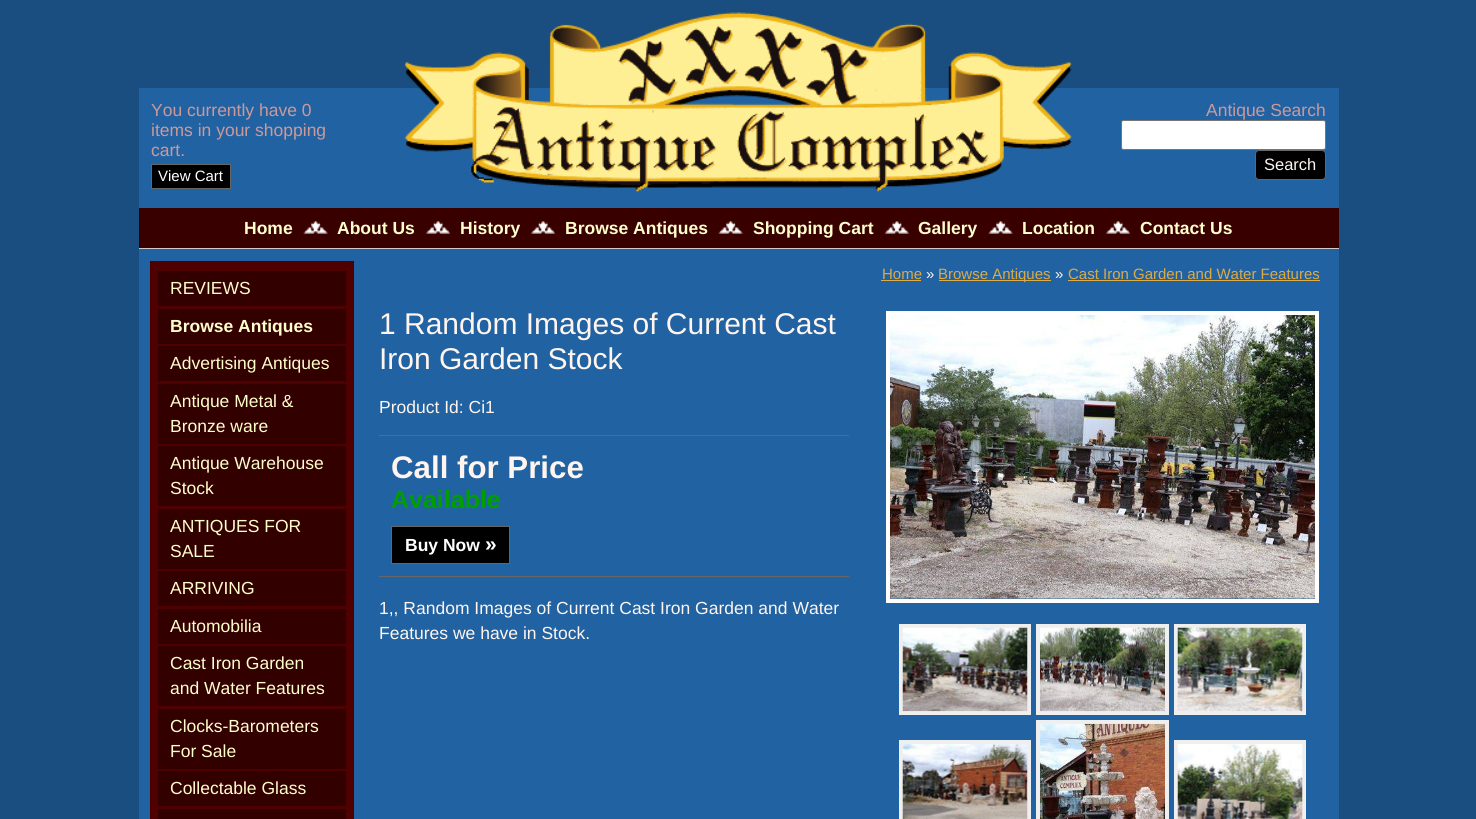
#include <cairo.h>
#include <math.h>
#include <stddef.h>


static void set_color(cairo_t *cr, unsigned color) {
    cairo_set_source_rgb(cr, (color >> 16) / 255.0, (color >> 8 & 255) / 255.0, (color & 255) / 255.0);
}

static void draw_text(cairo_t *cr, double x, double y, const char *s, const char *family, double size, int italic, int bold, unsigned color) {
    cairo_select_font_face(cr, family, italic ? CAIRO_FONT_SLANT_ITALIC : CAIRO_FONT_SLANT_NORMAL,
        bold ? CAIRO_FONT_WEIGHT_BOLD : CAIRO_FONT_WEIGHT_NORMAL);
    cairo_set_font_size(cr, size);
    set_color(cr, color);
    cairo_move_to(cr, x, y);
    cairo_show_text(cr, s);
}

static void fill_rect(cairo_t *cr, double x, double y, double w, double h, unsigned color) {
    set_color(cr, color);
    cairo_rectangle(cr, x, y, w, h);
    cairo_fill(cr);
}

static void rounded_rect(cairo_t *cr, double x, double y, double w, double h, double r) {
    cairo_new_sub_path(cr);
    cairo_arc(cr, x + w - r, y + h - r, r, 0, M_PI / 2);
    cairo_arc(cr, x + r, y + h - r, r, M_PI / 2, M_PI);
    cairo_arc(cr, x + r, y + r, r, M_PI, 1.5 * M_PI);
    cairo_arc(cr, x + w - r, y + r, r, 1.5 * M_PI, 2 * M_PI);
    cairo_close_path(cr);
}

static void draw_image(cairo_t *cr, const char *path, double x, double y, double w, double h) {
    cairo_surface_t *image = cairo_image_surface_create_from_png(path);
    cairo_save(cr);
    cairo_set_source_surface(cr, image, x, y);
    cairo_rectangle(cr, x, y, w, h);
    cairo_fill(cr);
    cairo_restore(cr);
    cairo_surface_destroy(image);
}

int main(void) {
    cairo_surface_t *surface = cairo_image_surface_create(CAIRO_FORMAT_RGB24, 1476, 819);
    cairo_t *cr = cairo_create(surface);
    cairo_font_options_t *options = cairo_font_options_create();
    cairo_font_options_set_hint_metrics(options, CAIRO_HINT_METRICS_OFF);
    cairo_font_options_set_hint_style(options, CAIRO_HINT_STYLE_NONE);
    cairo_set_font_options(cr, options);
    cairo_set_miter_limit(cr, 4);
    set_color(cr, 0x1A4D80);
    cairo_paint(cr);
    fill_rect(cr, 139, 88, 1200, 120, 0x2162A3);
    draw_text(cr, 151, 116, "You currently have 0", "Liberation Sans", 17.5, 0, 0, 0xCC9999);
    draw_text(cr, 151, 136, "items in your shopping", "Liberation Sans", 17.5, 0, 0, 0xCC9999);
    draw_text(cr, 151, 156, "cart.", "Liberation Sans", 17.5, 0, 0, 0xCC9999);
    set_color(cr, 0x000000);
    cairo_rectangle(cr, 151.5, 164.5, 79, 24);
    cairo_fill_preserve(cr);
    set_color(cr, 0x666666);
    cairo_set_line_width(cr, 1);
    cairo_stroke(cr);
    draw_text(cr, 158, 181, "View Cart", "Liberation Sans", 15, 0, 0, 0xFFFFFF);
    draw_image(cr, "assets/img1.png", 405, 12, 667, 180);
    draw_text(cr, 1206, 116, "Antique Search", "Liberation Sans", 17.5, 0, 0, 0xCC9999);
    set_color(cr, 0xFFFFFF);
    rounded_rect(cr, 1121.5, 120.5, 204, 29, 2);
    cairo_fill_preserve(cr);
    set_color(cr, 0x767676);
    cairo_stroke(cr);
    set_color(cr, 0x000000);
    rounded_rect(cr, 1255.5, 150.5, 70, 29, 3.5);
    cairo_fill_preserve(cr);
    set_color(cr, 0x666666);
    cairo_stroke(cr);
    draw_text(cr, 1264, 170, "Search", "Liberation Sans", 16.5, 0, 0, 0xFFF5EE);
    fill_rect(cr, 139, 249, 1200, 570, 0x2162A3);
    fill_rect(cr, 139, 208, 1200, 40, 0x390000);
    fill_rect(cr, 139, 248, 1200, 1, 0xCCCCCC);
    draw_text(cr, 244, 234, "Home", "Liberation Sans", 17.5, 0, 1, 0xFFFFCC);
    draw_image(cr, "assets/img2.png", 303, 221, 25, 13);
    draw_text(cr, 337, 234, "About Us", "Liberation Sans", 17.5, 0, 1, 0xFFFFCC);
    draw_image(cr, "assets/img3.png", 426, 221, 24, 13);
    draw_text(cr, 460, 234, "History", "Liberation Sans", 17.5, 0, 1, 0xFFFFCC);
    draw_image(cr, "assets/img3.png", 531, 221, 24, 13);
    draw_text(cr, 565, 234, "Browse Antiques", "Liberation Sans", 17.5, 0, 1, 0xFFFFCC);
    draw_image(cr, "assets/img4.png", 718, 221, 25, 13);
    draw_text(cr, 753, 234, "Shopping Cart", "Liberation Sans", 17.5, 0, 1, 0xFFFFCC);
    draw_image(cr, "assets/img5.png", 885, 221, 24, 13);
    draw_text(cr, 918, 234, "Gallery", "Liberation Sans", 17.5, 0, 1, 0xFFFFCC);
    draw_image(cr, "assets/img4.png", 988, 221, 25, 13);
    draw_text(cr, 1022, 234, "Location", "Liberation Sans", 17.5, 0, 1, 0xFFFFCC);
    draw_image(cr, "assets/img3.png", 1106, 221, 24, 13);
    draw_text(cr, 1140, 234, "Contact Us", "Liberation Sans", 17.5, 0, 1, 0xFFFFCC);
    fill_rect(cr, 150, 261, 204, 558, 0x4F0000);
    fill_rect(cr, 158, 271, 188, 35, 0x330000);
    draw_text(cr, 170, 294, "REVIEWS", "Liberation Sans", 17.5, 0, 0, 0xFFFFCC);
    fill_rect(cr, 158, 309, 188, 35, 0x330000);
    draw_text(cr, 170, 332, "Browse Antiques", "Liberation Sans", 17.5, 0, 1, 0xFFFFCC);
    fill_rect(cr, 158, 346, 188, 35, 0x330000);
    draw_text(cr, 170, 369, "Advertising Antiques", "Liberation Sans", 17.5, 0, 0, 0xFFFFCC);
    fill_rect(cr, 158, 384, 188, 60, 0x330000);
    draw_text(cr, 170, 407, "Antique Metal &", "Liberation Sans", 17.5, 0, 0, 0xFFFFCC);
    draw_text(cr, 170, 432, "Bronze ware", "Liberation Sans", 17.5, 0, 0, 0xFFFFCC);
    fill_rect(cr, 158, 446, 188, 60, 0x330000);
    draw_text(cr, 170, 469, "Antique Warehouse", "Liberation Sans", 17.5, 0, 0, 0xFFFFCC);
    draw_text(cr, 170, 494, "Stock", "Liberation Sans", 17.5, 0, 0, 0xFFFFCC);
    fill_rect(cr, 158, 509, 188, 60, 0x330000);
    draw_text(cr, 170, 532, "ANTIQUES FOR", "Liberation Sans", 17.5, 0, 0, 0xFFFFCC);
    draw_text(cr, 170, 557, "SALE", "Liberation Sans", 17.5, 0, 0, 0xFFFFCC);
    fill_rect(cr, 158, 571, 188, 35, 0x330000);
    draw_text(cr, 170, 594, "ARRIVING", "Liberation Sans", 17.5, 0, 0, 0xFFFFCC);
    fill_rect(cr, 158, 609, 188, 35, 0x330000);
    draw_text(cr, 170, 632, "Automobilia", "Liberation Sans", 17.5, 0, 0, 0xFFFFCC);
    fill_rect(cr, 158, 646, 188, 60, 0x330000);
    draw_text(cr, 170, 669, "Cast Iron Garden", "Liberation Sans", 17.5, 0, 0, 0xFFFFCC);
    draw_text(cr, 170, 694, "and Water Features", "Liberation Sans", 17.5, 0, 0, 0xFFFFCC);
    fill_rect(cr, 158, 709, 188, 60, 0x330000);
    draw_text(cr, 170, 732, "Clocks-Barometers", "Liberation Sans", 17.5, 0, 0, 0xFFFFCC);
    draw_text(cr, 170, 757, "For Sale", "Liberation Sans", 17.5, 0, 0, 0xFFFFCC);
    fill_rect(cr, 158, 771, 188, 35, 0x330000);
    draw_text(cr, 170, 794, "Collectable Glass", "Liberation Sans", 17.5, 0, 0, 0xFFFFCC);
    fill_rect(cr, 158, 809, 188, 10, 0x330000);
    draw_text(cr, 882, 279, "Home", "Liberation Sans", 15, 0, 0, 0xDDAA44);
    fill_rect(cr, 881, 280, 40, 1, 0xDDAA44);
    draw_text(cr, 926, 279, "»", "Liberation Sans", 15, 0, 0, 0xFFF5EE);
    fill_rect(cr, 939, 280, 112, 1, 0xDDAA44);
    draw_text(cr, 938, 279, "Browse Antiques", "Liberation Sans", 15, 0, 0, 0xDDAA44);
    draw_text(cr, 1055, 279, "»", "Liberation Sans", 15, 0, 0, 0xFFF5EE);
    draw_text(cr, 1068, 279, "Cast Iron Garden and Water Features", "Liberation Sans", 15, 0, 0, 0xDDAA44);
    fill_rect(cr, 1068, 280, 252, 1, 0xDDAA44);
    draw_text(cr, 379, 334, "1 Random Images of Current Cast", "Liberation Sans", 30, 0, 0, 0xFFF5EE);
    draw_text(cr, 379, 369, "Iron Garden Stock", "Liberation Sans", 30, 0, 0, 0xFFF5EE);
    draw_text(cr, 379, 413, "Product Id: Ci1", "Liberation Sans", 17.5, 0, 0, 0xFFF5EE);
    fill_rect(cr, 379, 435, 470, 1, 0x666666);
    draw_text(cr, 391, 478, "Call for Price", "Liberation Sans", 31.25, 0, 1, 0xFFF5EE);
    draw_text(cr, 391, 508, "Available", "Liberation Sans", 25, 0, 1, 0x009F00);
    fill_rect(cr, 379, 576, 470, 1, 0x666666);
    set_color(cr, 0x000000);
    cairo_rectangle(cr, 391.5, 526.5, 118, 37);
    cairo_fill_preserve(cr);
    set_color(cr, 0x666666);
    cairo_stroke(cr);
    draw_text(cr, 405, 551, "Buy Now", "Liberation Sans", 17.5, 0, 1, 0xFFFFFF);
    draw_text(cr, 485, 551, "»", "Liberation Sans", 21, 0, 1, 0xFFFFFF);
    draw_text(cr, 379, 614, "1,, Random Images of Current Cast Iron Garden and Water", "Liberation Sans", 17.5, 0, 0, 0xFFF5EE);
    draw_text(cr, 379, 639, "Features we have in Stock.", "Liberation Sans", 17.5, 0, 0, 0xFFF5EE);
    cairo_rectangle(cr, 888, 313, 429, 288);
    set_color(cr, 0xFFFFFF);
    cairo_set_line_width(cr, 4);
    cairo_stroke(cr);
    draw_image(cr, "assets/img6.png", 890, 315, 425, 284);
    cairo_rectangle(cr, 901, 626, 128, 87);
    set_color(cr, 0xEFEFEF);
    cairo_stroke(cr);
    draw_image(cr, "assets/img7.png", 902, 627, 126, 85);
    cairo_rectangle(cr, 1038, 626, 129, 87);
    cairo_stroke(cr);
    draw_image(cr, "assets/img8.png", 1040, 627, 125, 85);
    cairo_rectangle(cr, 1176, 626, 128, 87);
    cairo_stroke(cr);
    draw_image(cr, "assets/img9.png", 1177, 627, 126, 85);
    cairo_rectangle(cr, 901, 742, 128, 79);
    cairo_stroke(cr);
    draw_image(cr, "assets/img10.png", 902, 744, 126, 75);
    cairo_rectangle(cr, 1038, 722, 129, 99);
    cairo_stroke(cr);
    draw_image(cr, "assets/img11.png", 1040, 723, 125, 96);
    cairo_rectangle(cr, 1176, 742, 128, 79);
    cairo_stroke(cr);
    draw_image(cr, "assets/img12.png", 1177, 744, 126, 75);
    cairo_surface_write_to_png(surface, "output.png");
    cairo_font_options_destroy(options);
    cairo_destroy(cr);
    cairo_surface_destroy(surface);
    return 0;
}
